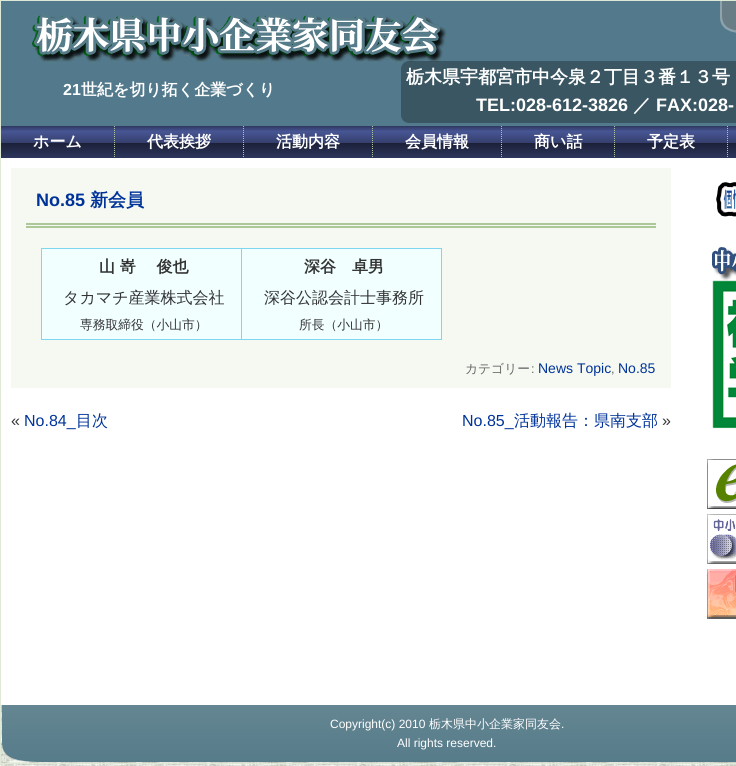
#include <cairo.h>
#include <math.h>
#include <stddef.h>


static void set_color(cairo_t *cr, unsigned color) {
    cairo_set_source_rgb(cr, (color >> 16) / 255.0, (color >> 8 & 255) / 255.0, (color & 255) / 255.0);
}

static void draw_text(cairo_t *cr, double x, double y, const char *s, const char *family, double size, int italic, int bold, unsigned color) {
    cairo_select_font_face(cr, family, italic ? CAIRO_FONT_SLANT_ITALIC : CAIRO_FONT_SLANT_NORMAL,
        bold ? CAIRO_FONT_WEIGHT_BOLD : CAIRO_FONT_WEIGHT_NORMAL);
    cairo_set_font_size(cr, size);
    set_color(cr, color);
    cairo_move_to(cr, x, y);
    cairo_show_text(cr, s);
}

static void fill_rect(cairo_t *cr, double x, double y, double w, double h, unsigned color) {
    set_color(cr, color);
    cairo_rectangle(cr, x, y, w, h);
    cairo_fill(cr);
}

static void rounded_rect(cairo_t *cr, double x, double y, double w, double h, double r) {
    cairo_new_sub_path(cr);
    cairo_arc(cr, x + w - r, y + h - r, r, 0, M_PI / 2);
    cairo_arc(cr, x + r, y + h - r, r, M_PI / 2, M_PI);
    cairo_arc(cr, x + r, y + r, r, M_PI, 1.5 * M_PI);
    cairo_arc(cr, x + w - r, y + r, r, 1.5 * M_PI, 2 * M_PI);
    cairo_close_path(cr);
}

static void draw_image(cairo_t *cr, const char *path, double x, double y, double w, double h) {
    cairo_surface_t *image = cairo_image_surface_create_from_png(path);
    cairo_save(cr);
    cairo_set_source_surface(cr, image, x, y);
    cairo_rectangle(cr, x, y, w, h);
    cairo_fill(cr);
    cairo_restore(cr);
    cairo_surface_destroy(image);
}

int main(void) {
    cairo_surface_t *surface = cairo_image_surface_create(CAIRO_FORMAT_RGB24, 736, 766);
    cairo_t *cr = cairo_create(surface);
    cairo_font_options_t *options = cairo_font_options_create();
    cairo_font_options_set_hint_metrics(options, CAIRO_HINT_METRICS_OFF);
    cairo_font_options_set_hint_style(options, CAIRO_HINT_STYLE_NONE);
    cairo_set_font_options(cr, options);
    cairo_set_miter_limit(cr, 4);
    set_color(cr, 0xFFFFFF);
    cairo_paint(cr);
    draw_image(cr, "assets/img1.png", 0, 705, 736, 61);
    cairo_rectangle(cr, 0.5, 0.5, 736, 763);
    set_color(cr, 0xDEE9D6);
    cairo_set_line_width(cr, 1);
    cairo_stroke(cr);
    draw_image(cr, "assets/img2.png", 1, 1, 735, 125);
    draw_image(cr, "assets/img3.png", 34, 15, 413, 46);
    draw_image(cr, "assets/img4.png", 720, 1, 16, 32);
    draw_text(cr, 63, 95, "21", "Liberation Sans", 16, 0, 1, 0xFFFFFF);
    draw_text(cr, 81, 95, "世紀を切り拓く企業づくり", "WenQuanYi Zen Hei", 16, 0, 1, 0xFFFFFF);
    cairo_set_source_rgba(cr, 0, 0, 0, 0.3);
    rounded_rect(cr, 401, 61, 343, 62, 8);
    cairo_fill(cr);
    draw_text(cr, 406, 83, "栃木県宇都宮市中今泉２丁目３番１３号", "WenQuanYi Zen Hei", 18, 0, 1, 0xFFFFFF);
    draw_text(cr, 476, 111, "TEL:028-612-3826", "Liberation Sans", 18, 0, 1, 0xFFFFFF);
    draw_text(cr, 633, 111, "／", "WenQuanYi Zen Hei", 18, 0, 1, 0xFFFFFF);
    draw_text(cr, 656, 111, "FAX:028-", "Liberation Sans", 18, 0, 1, 0xFFFFFF);
    draw_image(cr, "assets/img5.png", 1, 126, 735, 32);
    cairo_new_path(cr);
    cairo_move_to(cr, 114.5, 126);
    cairo_line_to(cr, 114.5, 158);
    set_color(cr, 0xACC798);
    cairo_set_dash(cr, (double[]){1, 1}, 2, 0);
    cairo_stroke(cr);
    draw_text(cr, 33, 147, "ホーム", "WenQuanYi Zen Hei", 16, 0, 1, 0xFFFFFF);
    cairo_new_path(cr);
    cairo_move_to(cr, 243.5, 126);
    cairo_line_to(cr, 243.5, 158);
    set_color(cr, 0xACC798);
    cairo_stroke(cr);
    draw_text(cr, 147, 147, "代表挨拶", "WenQuanYi Zen Hei", 16, 0, 1, 0xFFFFFF);
    cairo_new_path(cr);
    cairo_move_to(cr, 372.5, 126);
    cairo_line_to(cr, 372.5, 158);
    set_color(cr, 0xACC798);
    cairo_stroke(cr);
    draw_text(cr, 276, 147, "活動内容", "WenQuanYi Zen Hei", 16, 0, 1, 0xFFFFFF);
    cairo_new_path(cr);
    cairo_move_to(cr, 501.5, 126);
    cairo_line_to(cr, 501.5, 158);
    set_color(cr, 0xACC798);
    cairo_stroke(cr);
    draw_text(cr, 405, 147, "会員情報", "WenQuanYi Zen Hei", 16, 0, 1, 0xFFFFFF);
    cairo_new_path(cr);
    cairo_move_to(cr, 614.5, 126);
    cairo_line_to(cr, 614.5, 158);
    set_color(cr, 0xACC798);
    cairo_stroke(cr);
    draw_text(cr, 534, 147, "商い話", "WenQuanYi Zen Hei", 16, 0, 1, 0xFFFFFF);
    cairo_new_path(cr);
    cairo_move_to(cr, 727.5, 126);
    cairo_line_to(cr, 727.5, 158);
    set_color(cr, 0xACC798);
    cairo_stroke(cr);
    draw_text(cr, 647, 147, "予定表", "WenQuanYi Zen Hei", 16, 0, 1, 0xFFFFFF);
    fill_rect(cr, 11, 168, 660, 220, 0xF5F9F2);
    fill_rect(cr, 26, 223, 630, 2, 0xACC798);
    fill_rect(cr, 26, 226, 630, 2, 0xACC798);
    draw_text(cr, 36, 206, "No.85", "Liberation Sans", 18, 0, 1, 0x003399);
    draw_text(cr, 90, 206, "新会員", "WenQuanYi Zen Hei", 18, 0, 1, 0x003399);
    fill_rect(cr, 42, 249, 199, 90, 0xF2FFFF);
    fill_rect(cr, 241, 248, 201, 1, 0x7FD7EF);
    fill_rect(cr, 441, 248, 1, 92, 0x7FD7EF);
    fill_rect(cr, 241, 339, 201, 1, 0x7FD7EF);
    fill_rect(cr, 241, 248, 1, 92, 0x7FD7EF);
    fill_rect(cr, 41, 248, 201, 1, 0x7FD7EF);
    fill_rect(cr, 41, 339, 201, 1, 0x7FD7EF);
    fill_rect(cr, 41, 248, 1, 92, 0x7FD7EF);
    draw_text(cr, 99, 272, "山 嵜 　俊也", "WenQuanYi Zen Hei", 16, 0, 1, 0x333333);
    draw_text(cr, 63, 303, "タカマチ産業株式会社", "WenQuanYi Zen Hei Medium", 16, 0, 0, 0x333333);
    draw_text(cr, 80, 329, "専務取締役（小山市）", "WenQuanYi Zen Hei Medium", 12.75, 0, 0, 0x333333);
    fill_rect(cr, 242, 249, 199, 90, 0xF2FFFF);
    draw_text(cr, 304, 272, "深谷　卓男", "WenQuanYi Zen Hei", 16, 0, 1, 0x333333);
    draw_text(cr, 264, 303, "深谷公認会計士事務所", "WenQuanYi Zen Hei Medium", 16, 0, 0, 0x333333);
    draw_text(cr, 299, 329, "所長（小山市）", "WenQuanYi Zen Hei Medium", 12.75, 0, 0, 0x333333);
    draw_text(cr, 465, 373, "カテゴリー", "WenQuanYi Zen Hei Medium", 12.75, 0, 0, 0x666666);
    draw_text(cr, 531, 373, ":", "Liberation Sans", 12.75, 0, 0, 0x666666);
    draw_text(cr, 538, 373, "News Topic", "Liberation Sans", 14, 0, 0, 0x003399);
    draw_text(cr, 611, 373, ",", "Liberation Sans", 12.75, 0, 0, 0x666666);
    draw_text(cr, 618, 373, "No.85", "Liberation Sans", 14, 0, 0, 0x003399);
    draw_text(cr, 11, 426, "«", "Liberation Sans", 16, 0, 0, 0x333333);
    draw_text(cr, 24, 426, "No.84_", "Liberation Sans", 16, 0, 0, 0x003399);
    draw_text(cr, 76, 426, "目次", "WenQuanYi Zen Hei Medium", 16, 0, 0, 0x003399);
    draw_text(cr, 462, 426, "No.85_", "Liberation Sans", 16, 0, 0, 0x003399);
    draw_text(cr, 514, 426, "活動報告：県南支部", "WenQuanYi Zen Hei Medium", 16, 0, 0, 0x003399);
    draw_text(cr, 662, 426, "»", "Liberation Sans", 16, 0, 0, 0x333333);
    draw_image(cr, "assets/img6.png", 712, 182, 24, 247);
    draw_image(cr, "assets/img7.png", 707, 459, 29, 50);
    draw_image(cr, "assets/img8.png", 707, 514, 29, 50);
    draw_image(cr, "assets/img9.png", 707, 569, 29, 50);
    draw_image(cr, "assets/img10.png", 2, 705, 734, 58);
    draw_text(cr, 330, 728, "Copyright(c) 2010", "Liberation Sans", 12, 0, 0, 0xFFFFFF);
    draw_text(cr, 429, 728, "栃木県中小企業家同友会", "WenQuanYi Zen Hei Medium", 12, 0, 0, 0xFFFFFF);
    draw_text(cr, 561, 728, ".", "Liberation Sans", 12, 0, 0, 0xFFFFFF);
    draw_text(cr, 397, 747, "All rights reserved.", "Liberation Sans", 12, 0, 0, 0xFFFFFF);
    cairo_surface_write_to_png(surface, "output.png");
    cairo_font_options_destroy(options);
    cairo_destroy(cr);
    cairo_surface_destroy(surface);
    return 0;
}
